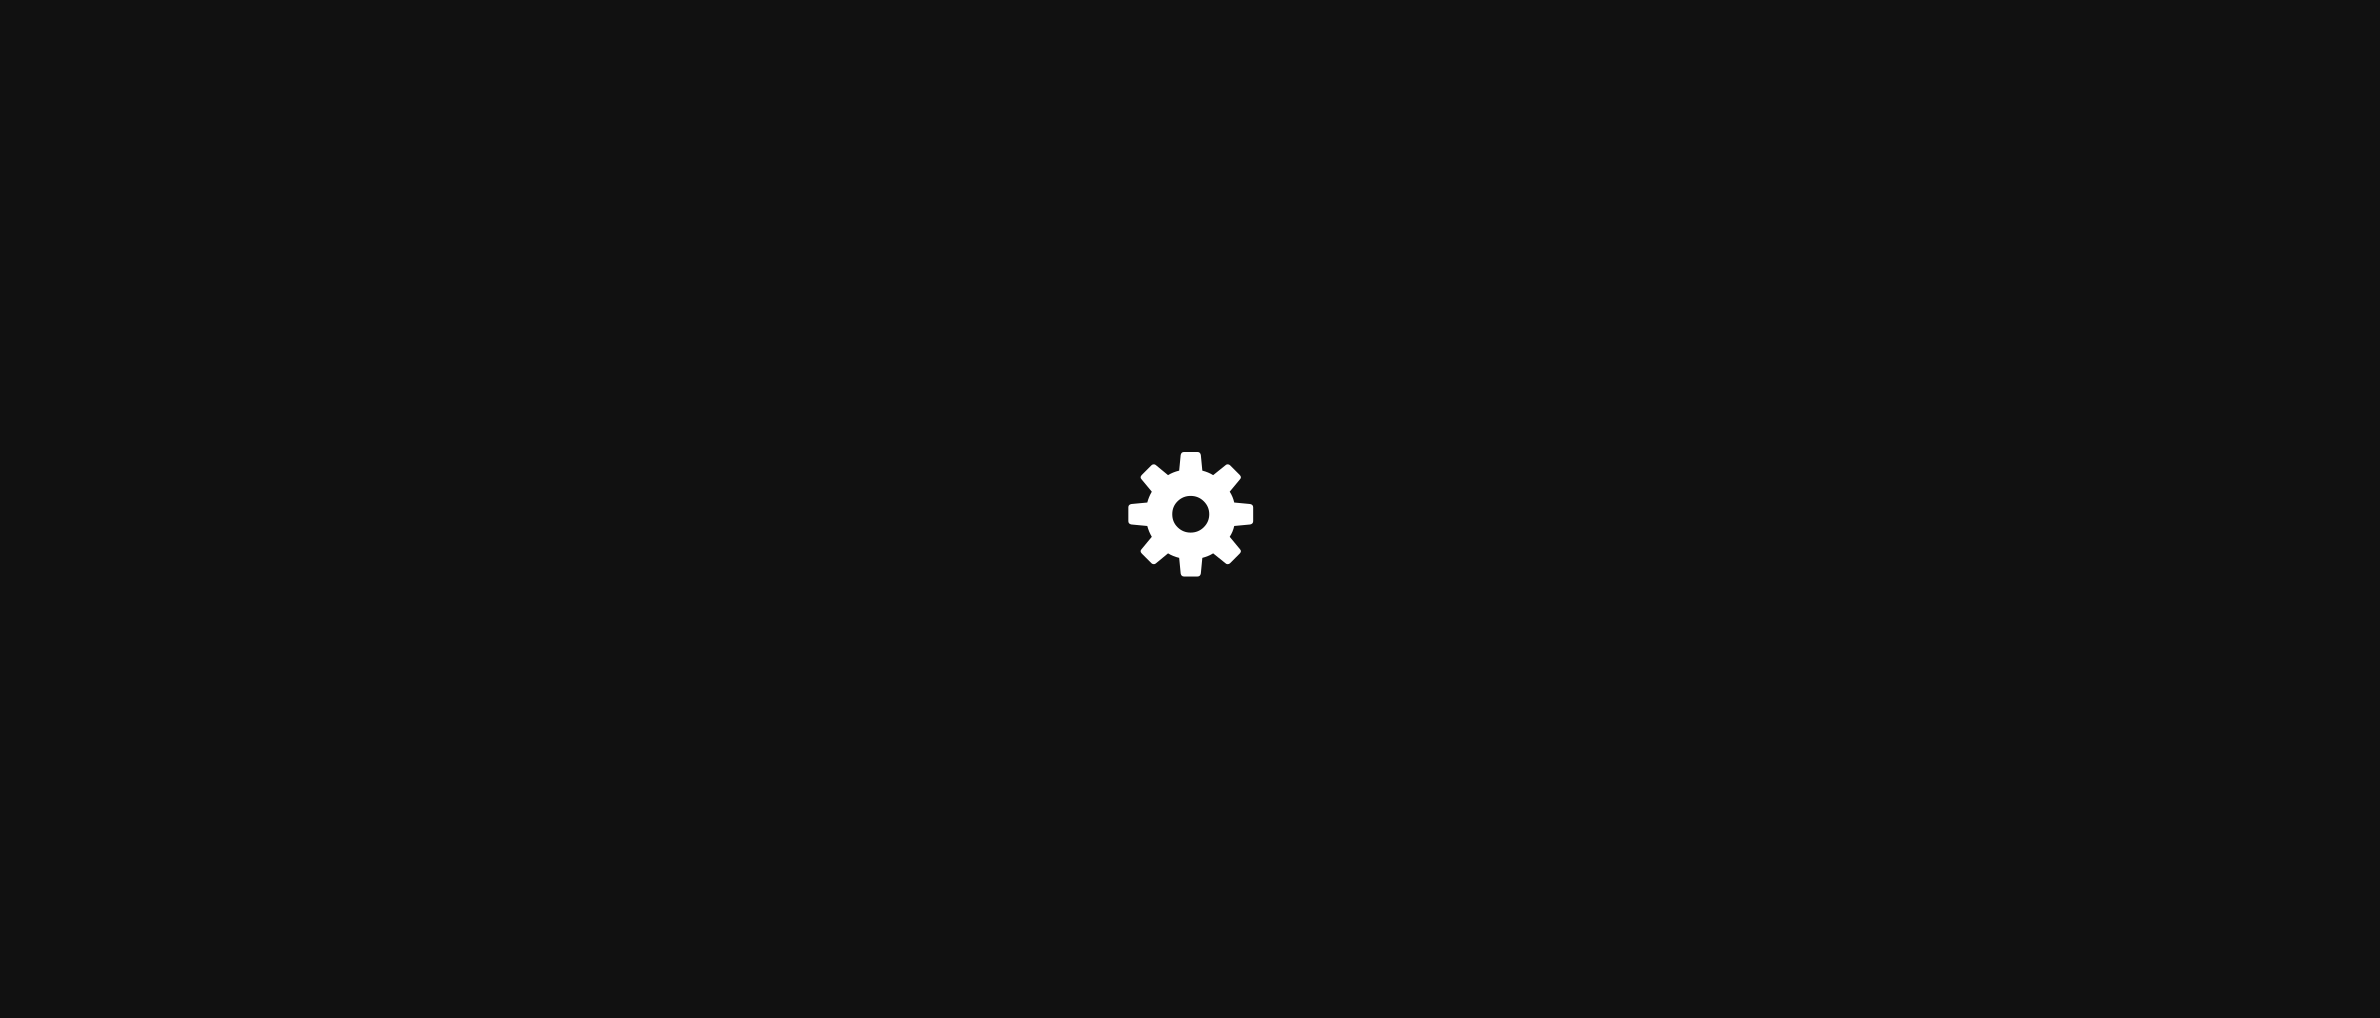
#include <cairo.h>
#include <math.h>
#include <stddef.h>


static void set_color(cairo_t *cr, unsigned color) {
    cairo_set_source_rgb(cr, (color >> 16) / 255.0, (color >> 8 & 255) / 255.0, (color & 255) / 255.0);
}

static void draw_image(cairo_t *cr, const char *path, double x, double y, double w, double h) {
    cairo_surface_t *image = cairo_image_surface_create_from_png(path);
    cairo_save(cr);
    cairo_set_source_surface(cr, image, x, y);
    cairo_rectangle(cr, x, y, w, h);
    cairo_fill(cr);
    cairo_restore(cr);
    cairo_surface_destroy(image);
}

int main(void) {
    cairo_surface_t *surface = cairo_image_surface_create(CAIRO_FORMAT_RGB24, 2380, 1018);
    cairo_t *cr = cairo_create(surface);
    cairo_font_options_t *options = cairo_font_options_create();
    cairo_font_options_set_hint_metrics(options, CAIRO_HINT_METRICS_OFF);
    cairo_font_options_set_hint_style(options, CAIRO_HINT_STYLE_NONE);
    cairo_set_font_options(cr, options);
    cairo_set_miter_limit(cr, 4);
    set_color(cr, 0x111111);
    cairo_paint(cr);
    draw_image(cr, "assets/img1.png", 1128, 452, 126, 125);
    cairo_surface_write_to_png(surface, "output.png");
    cairo_font_options_destroy(options);
    cairo_destroy(cr);
    cairo_surface_destroy(surface);
    return 0;
}
